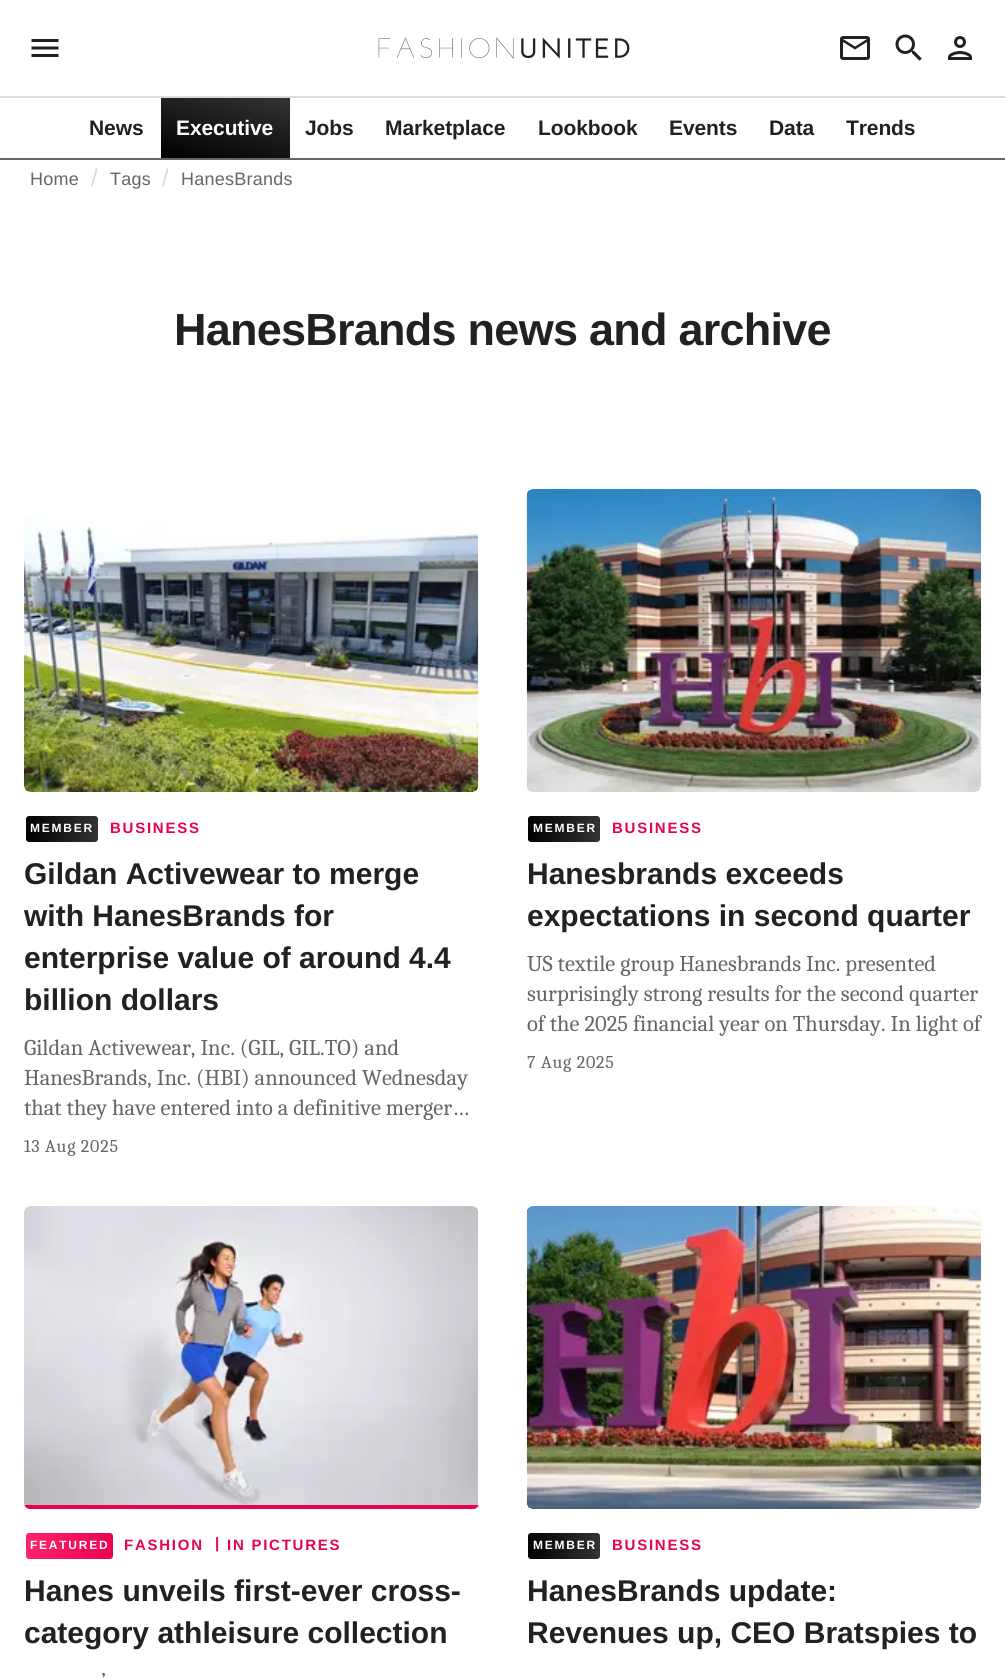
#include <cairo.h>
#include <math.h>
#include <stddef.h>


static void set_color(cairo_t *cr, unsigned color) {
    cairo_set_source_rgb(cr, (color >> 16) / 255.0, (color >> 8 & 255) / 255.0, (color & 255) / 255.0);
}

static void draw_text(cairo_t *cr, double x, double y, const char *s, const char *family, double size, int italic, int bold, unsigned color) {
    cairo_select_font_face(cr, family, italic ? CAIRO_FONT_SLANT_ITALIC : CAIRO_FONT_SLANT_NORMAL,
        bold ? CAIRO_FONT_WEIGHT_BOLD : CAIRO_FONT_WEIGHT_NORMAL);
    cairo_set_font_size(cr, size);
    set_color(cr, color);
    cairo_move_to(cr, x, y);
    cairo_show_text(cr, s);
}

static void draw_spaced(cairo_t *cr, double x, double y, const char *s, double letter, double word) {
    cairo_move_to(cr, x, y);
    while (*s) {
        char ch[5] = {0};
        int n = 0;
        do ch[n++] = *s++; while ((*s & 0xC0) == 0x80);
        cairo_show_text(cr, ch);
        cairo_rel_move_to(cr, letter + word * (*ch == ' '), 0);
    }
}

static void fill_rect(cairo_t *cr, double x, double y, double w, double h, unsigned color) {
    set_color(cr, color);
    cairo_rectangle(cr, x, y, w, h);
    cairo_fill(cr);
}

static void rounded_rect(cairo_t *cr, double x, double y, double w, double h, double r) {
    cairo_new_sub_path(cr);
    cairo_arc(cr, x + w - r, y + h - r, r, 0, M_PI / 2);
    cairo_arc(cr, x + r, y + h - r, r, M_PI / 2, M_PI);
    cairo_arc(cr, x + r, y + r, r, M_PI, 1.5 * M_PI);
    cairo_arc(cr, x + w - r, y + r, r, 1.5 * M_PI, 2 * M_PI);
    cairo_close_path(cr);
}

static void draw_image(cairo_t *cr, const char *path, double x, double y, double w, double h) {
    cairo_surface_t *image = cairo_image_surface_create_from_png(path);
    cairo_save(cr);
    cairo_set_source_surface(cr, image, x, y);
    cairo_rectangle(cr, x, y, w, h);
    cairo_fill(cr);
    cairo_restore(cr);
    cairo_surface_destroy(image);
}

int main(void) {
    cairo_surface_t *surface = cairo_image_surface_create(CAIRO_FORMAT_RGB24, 1005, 1678);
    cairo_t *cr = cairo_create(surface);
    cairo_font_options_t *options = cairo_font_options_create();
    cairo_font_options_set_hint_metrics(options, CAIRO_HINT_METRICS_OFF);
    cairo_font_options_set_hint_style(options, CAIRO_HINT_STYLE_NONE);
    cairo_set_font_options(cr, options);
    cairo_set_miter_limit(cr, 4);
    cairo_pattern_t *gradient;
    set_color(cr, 0xFFFFFF);
    cairo_paint(cr);
    fill_rect(cr, 0, 96, 1005, 2, 0xDBDBDB);
    draw_image(cr, "assets/img1.png", 31, 39, 28, 18);
    draw_image(cr, "assets/img2.png", 378, 37, 252, 22);
    draw_image(cr, "assets/img3.png", 840, 36, 30, 24);
    draw_image(cr, "assets/img4.png", 895, 34, 27, 27);
    draw_image(cr, "assets/img5.png", 948, 36, 24, 24);
    fill_rect(cr, 0, 158, 1005, 2, 0x666666);
    cairo_select_font_face(cr, "Liberation Sans", CAIRO_FONT_SLANT_NORMAL, CAIRO_FONT_WEIGHT_BOLD);
    cairo_set_font_size(cr, 21);
    set_color(cr, 0x212121);
    draw_spaced(cr, 89, 135, "News", -0.1, 0);
    gradient = cairo_pattern_create_linear(214, 171, 236, 84);
    cairo_pattern_add_color_stop_rgba(gradient, 0, 0, 0, 0, 1);
    cairo_pattern_add_color_stop_rgba(gradient, 1, 0.2, 0.2, 0.2, 1);
    cairo_set_source(cr, gradient);
    cairo_pattern_destroy(gradient);
    cairo_rectangle(cr, 161, 98, 129, 60);
    cairo_fill(cr);
    set_color(cr, 0xFFFFFF);
    draw_spaced(cr, 176, 135, "Executive", -0.1, 0);
    set_color(cr, 0x212121);
    draw_spaced(cr, 305, 135, "Jobs", -0.1, 0);
    draw_spaced(cr, 385, 135, "Marketplace", -0.1, 0);
    draw_spaced(cr, 538, 135, "Lookbook", -0.1, 0);
    draw_spaced(cr, 669, 135, "Events", -0.1, 0);
    draw_spaced(cr, 769, 135, "Data", -0.1, 0);
    draw_spaced(cr, 846, 135, "Trends", -0.1, 0);
    cairo_select_font_face(cr, "Liberation Sans", CAIRO_FONT_SLANT_NORMAL, CAIRO_FONT_WEIGHT_NORMAL);
    cairo_set_font_size(cr, 18);
    set_color(cr, 0x666666);
    draw_spaced(cr, 30, 185, "Home", 0.25, 0);
    draw_text(cr, 91, 186, "/", "Liberation Sans", 24, 0, 0, 0xDBDBDB);
    cairo_set_font_size(cr, 18);
    set_color(cr, 0x666666);
    draw_spaced(cr, 110, 185, "Tags", 0.25, 0);
    draw_text(cr, 162, 186, "/", "Liberation Sans", 24, 0, 0, 0xDBDBDB);
    cairo_set_font_size(cr, 18);
    set_color(cr, 0x666666);
    draw_spaced(cr, 181, 185, "HanesBrands", 0.25, 0);
    cairo_select_font_face(cr, "Liberation Sans", CAIRO_FONT_SLANT_NORMAL, CAIRO_FONT_WEIGHT_BOLD);
    cairo_set_font_size(cr, 45);
    set_color(cr, 0x212121);
    draw_spaced(cr, 174, 345, "HanesBrands news and archive", -0.75, 0);
    draw_image(cr, "assets/img6.png", 24, 516, 455, 276);
    gradient = cairo_pattern_create_linear(26, 829, 98, 829);
    cairo_pattern_add_color_stop_rgba(gradient, 0, 0, 0, 0, 1);
    cairo_pattern_add_color_stop_rgba(gradient, 1, 0.2, 0.2, 0.2, 1);
    cairo_set_source(cr, gradient);
    cairo_pattern_destroy(gradient);
    rounded_rect(cr, 26, 816, 72, 26, 3);
    cairo_fill(cr);
    cairo_set_font_size(cr, 12);
    set_color(cr, 0xFFFFFF);
    draw_spaced(cr, 30, 832, "MEMBER", 1.75, 0);
    cairo_set_font_size(cr, 15);
    set_color(cr, 0xEA0151);
    draw_spaced(cr, 110, 833, "BUSINESS", 1.75, 0);
    draw_text(cr, 24, 884, "Gildan Activewear to merge", "Liberation Sans", 30, 0, 1, 0x212121);
    draw_text(cr, 24, 926, "with HanesBrands for", "Liberation Sans", 30, 0, 1, 0x212121);
    draw_text(cr, 24, 968, "enterprise value of around 4.4", "Liberation Sans", 30, 0, 1, 0x212121);
    draw_text(cr, 24, 1010, "billion dollars", "Liberation Sans", 30, 0, 1, 0x212121);
    draw_text(cr, 24, 1055, "Gildan Activewear, Inc. (GIL, GIL.TO) and", "Caladea", 22.5, 0, 0, 0x666666);
    draw_text(cr, 24, 1085, "HanesBrands, Inc. (HBI) announced Wednesday", "Caladea", 22.5, 0, 0, 0x666666);
    draw_text(cr, 24, 1115, "that they have entered into a definitive merger…", "Caladea", 22.5, 0, 0, 0x666666);
    cairo_set_font_size(cr, 18);
    draw_spaced(cr, 24, 1152, "13 Aug 2025", 0.75, 0);
    draw_image(cr, "assets/img7.png", 526, 489, 455, 303);
    gradient = cairo_pattern_create_linear(528, 829, 600, 829);
    cairo_pattern_add_color_stop_rgba(gradient, 0, 0, 0, 0, 1);
    cairo_pattern_add_color_stop_rgba(gradient, 1, 0.2, 0.2, 0.2, 1);
    cairo_set_source(cr, gradient);
    cairo_pattern_destroy(gradient);
    rounded_rect(cr, 528, 816, 72, 26, 3);
    cairo_fill(cr);
    cairo_select_font_face(cr, "Liberation Sans", CAIRO_FONT_SLANT_NORMAL, CAIRO_FONT_WEIGHT_BOLD);
    cairo_set_font_size(cr, 12);
    set_color(cr, 0xFFFFFF);
    draw_spaced(cr, 533, 832, "MEMBER", 1.75, 0);
    cairo_set_font_size(cr, 15);
    set_color(cr, 0xEA0151);
    draw_spaced(cr, 612, 833, "BUSINESS", 1.75, 0);
    draw_text(cr, 527, 884, "Hanesbrands exceeds", "Liberation Sans", 30, 0, 1, 0x212121);
    draw_text(cr, 527, 926, "expectations in second quarter", "Liberation Sans", 30, 0, 1, 0x212121);
    draw_text(cr, 527, 971, "US textile group Hanesbrands Inc. presented", "Caladea", 22.5, 0, 0, 0x666666);
    draw_text(cr, 527, 1001, "surprisingly strong results for the second quarter", "Caladea", 22.5, 0, 0, 0x666666);
    draw_text(cr, 527, 1031, "of the 2025 financial year on Thursday. In light of", "Caladea", 22.5, 0, 0, 0x666666);
    cairo_set_font_size(cr, 18);
    draw_spaced(cr, 527, 1068, "7 Aug 2025", 0.75, 0);
    draw_image(cr, "assets/img8.png", 24, 1206, 455, 303);
    cairo_save(cr);
    rounded_rect(cr, 24, 1206, 455, 303, 6);
    cairo_clip(cr);
    fill_rect(cr, 24, 1505, 455, 4, 0xEA0151);
    cairo_restore(cr);
    gradient = cairo_pattern_create_linear(26, 1546, 113, 1546);
    cairo_pattern_add_color_stop_rgba(gradient, 0, 1, 0.141, 0.408, 1);
    cairo_pattern_add_color_stop_rgba(gradient, 1, 0.918, 0.004, 0.318, 1);
    cairo_set_source(cr, gradient);
    cairo_pattern_destroy(gradient);
    rounded_rect(cr, 26, 1533, 87, 26, 3);
    cairo_fill(cr);
    cairo_select_font_face(cr, "Liberation Sans", CAIRO_FONT_SLANT_NORMAL, CAIRO_FONT_WEIGHT_BOLD);
    cairo_set_font_size(cr, 12);
    set_color(cr, 0xFFFFFF);
    draw_spaced(cr, 30, 1549, "FEATURED", 1.75, 0);
    cairo_set_font_size(cr, 15);
    set_color(cr, 0xEA0151);
    draw_spaced(cr, 124, 1550, "FASHION", 1.75, 0);
    draw_spaced(cr, 215, 1548, "|", 1.75, 0);
    draw_spaced(cr, 227, 1550, "IN PICTURES", 1.75, 0);
    draw_text(cr, 24, 1601, "Hanes unveils first-ever cross-", "Liberation Sans", 30, 0, 1, 0x212121);
    draw_text(cr, 24, 1643, "category athleisure collection", "Liberation Sans", 30, 0, 1, 0x212121);
    draw_text(cr, 101, 1688, "’", "Caladea", 22.5, 0, 0, 0x666666);
    draw_image(cr, "assets/img9.png", 526, 1206, 455, 303);
    gradient = cairo_pattern_create_linear(528, 1546, 600, 1546);
    cairo_pattern_add_color_stop_rgba(gradient, 0, 0, 0, 0, 1);
    cairo_pattern_add_color_stop_rgba(gradient, 1, 0.2, 0.2, 0.2, 1);
    cairo_set_source(cr, gradient);
    cairo_pattern_destroy(gradient);
    rounded_rect(cr, 528, 1533, 72, 26, 3);
    cairo_fill(cr);
    cairo_select_font_face(cr, "Liberation Sans", CAIRO_FONT_SLANT_NORMAL, CAIRO_FONT_WEIGHT_BOLD);
    cairo_set_font_size(cr, 12);
    set_color(cr, 0xFFFFFF);
    draw_spaced(cr, 533, 1549, "MEMBER", 1.75, 0);
    cairo_set_font_size(cr, 15);
    set_color(cr, 0xEA0151);
    draw_spaced(cr, 612, 1550, "BUSINESS", 1.75, 0);
    draw_text(cr, 527, 1601, "HanesBrands update:", "Liberation Sans", 30, 0, 1, 0x212121);
    draw_text(cr, 527, 1643, "Revenues up, CEO Bratspies to", "Liberation Sans", 30, 0, 1, 0x212121);
    cairo_surface_write_to_png(surface, "output.png");
    cairo_font_options_destroy(options);
    cairo_destroy(cr);
    cairo_surface_destroy(surface);
    return 0;
}
